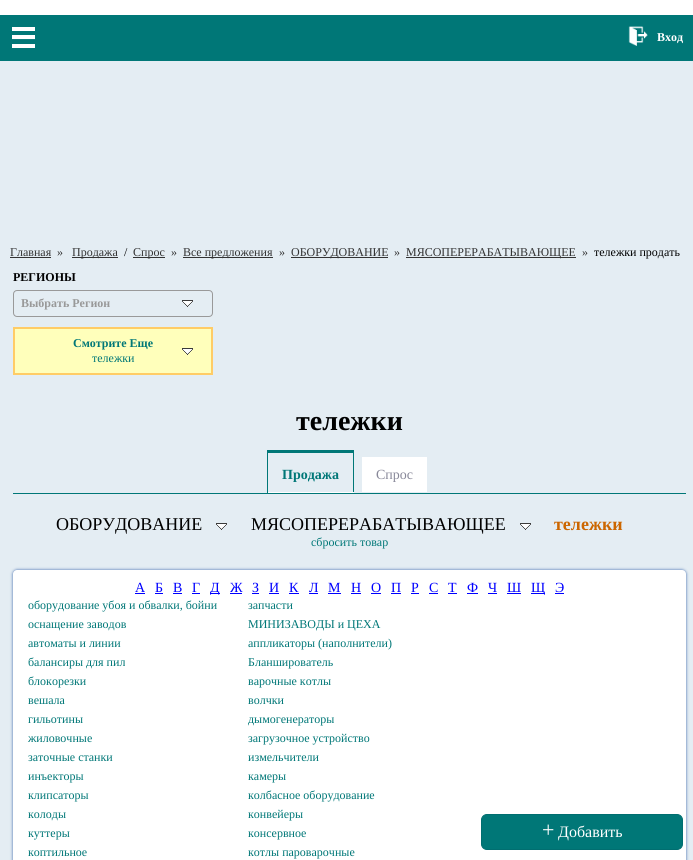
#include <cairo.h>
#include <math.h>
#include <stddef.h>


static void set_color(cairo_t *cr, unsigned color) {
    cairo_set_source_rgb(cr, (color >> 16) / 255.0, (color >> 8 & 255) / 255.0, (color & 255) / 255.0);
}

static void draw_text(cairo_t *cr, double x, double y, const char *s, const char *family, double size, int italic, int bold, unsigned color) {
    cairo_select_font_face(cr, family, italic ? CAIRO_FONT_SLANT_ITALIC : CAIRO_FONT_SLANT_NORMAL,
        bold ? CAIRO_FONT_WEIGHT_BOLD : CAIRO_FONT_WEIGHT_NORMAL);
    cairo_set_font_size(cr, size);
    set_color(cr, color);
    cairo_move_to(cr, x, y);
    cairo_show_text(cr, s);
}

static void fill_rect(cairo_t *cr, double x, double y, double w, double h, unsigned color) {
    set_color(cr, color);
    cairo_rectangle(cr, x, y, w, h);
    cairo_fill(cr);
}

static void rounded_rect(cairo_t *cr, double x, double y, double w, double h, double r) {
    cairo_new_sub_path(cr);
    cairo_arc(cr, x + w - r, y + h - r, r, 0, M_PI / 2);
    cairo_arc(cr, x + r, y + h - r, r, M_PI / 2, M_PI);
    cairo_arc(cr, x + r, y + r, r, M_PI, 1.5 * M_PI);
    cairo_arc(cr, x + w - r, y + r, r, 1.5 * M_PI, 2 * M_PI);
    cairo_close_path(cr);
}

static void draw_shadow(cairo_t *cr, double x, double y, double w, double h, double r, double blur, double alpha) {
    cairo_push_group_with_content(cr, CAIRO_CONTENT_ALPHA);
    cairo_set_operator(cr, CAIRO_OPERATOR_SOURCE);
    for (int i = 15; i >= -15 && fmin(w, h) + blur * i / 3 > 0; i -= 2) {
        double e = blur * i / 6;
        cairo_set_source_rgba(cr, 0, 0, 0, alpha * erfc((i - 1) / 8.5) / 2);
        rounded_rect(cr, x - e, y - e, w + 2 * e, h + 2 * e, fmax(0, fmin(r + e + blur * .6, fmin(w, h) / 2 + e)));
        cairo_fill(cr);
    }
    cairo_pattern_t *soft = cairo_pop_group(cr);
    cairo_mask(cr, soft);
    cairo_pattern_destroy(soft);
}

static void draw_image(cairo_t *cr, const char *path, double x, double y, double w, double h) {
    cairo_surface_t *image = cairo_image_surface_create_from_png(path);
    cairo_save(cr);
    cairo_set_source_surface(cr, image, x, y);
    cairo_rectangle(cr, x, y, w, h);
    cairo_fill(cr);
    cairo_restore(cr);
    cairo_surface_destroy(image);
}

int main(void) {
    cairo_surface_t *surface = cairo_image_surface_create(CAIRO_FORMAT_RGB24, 693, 860);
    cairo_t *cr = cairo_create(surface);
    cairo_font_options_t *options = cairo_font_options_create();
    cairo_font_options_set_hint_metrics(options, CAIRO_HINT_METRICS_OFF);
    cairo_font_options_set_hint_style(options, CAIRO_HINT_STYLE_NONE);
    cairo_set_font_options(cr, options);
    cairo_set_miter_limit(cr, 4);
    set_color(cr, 0xE4EDF3);
    cairo_paint(cr);
    fill_rect(cr, 0, 0, 693, 15, 0xFFFFFF);
    fill_rect(cr, 0, 15, 693, 46, 0x007777);
    draw_image(cr, "assets/img1.png", 12, 27, 23, 21);
    draw_image(cr, "assets/img2.png", 628, 26, 20, 20);
    draw_text(cr, 657, 41, "Вход", "Liberation Serif", 12, 0, 1, 0xFFFFFF);
    draw_text(cr, 10, 256, "Главная", "Liberation Serif", 12, 0, 0, 0x333333);
    fill_rect(cr, 10, 257, 41, 1, 0x333333);
    draw_text(cr, 57, 256, "»", "Liberation Serif", 12, 0, 0, 0x333333);
    fill_rect(cr, 72, 257, 46, 1, 0x333333);
    draw_text(cr, 72, 256, "Продажа", "Liberation Serif", 12, 0, 0, 0x333333);
    draw_text(cr, 124, 256, "/", "Liberation Serif", 12, 0, 0, 0x000000);
    fill_rect(cr, 133, 257, 32, 1, 0x333333);
    draw_text(cr, 133, 256, "Спрос", "Liberation Serif", 12, 0, 0, 0x333333);
    draw_text(cr, 171, 256, "»", "Liberation Serif", 12, 0, 0, 0x333333);
    fill_rect(cr, 183, 257, 90, 1, 0x333333);
    draw_text(cr, 183, 256, "Все предложения", "Liberation Serif", 12, 0, 0, 0x333333);
    draw_text(cr, 279, 256, "»", "Liberation Serif", 12, 0, 0, 0x333333);
    fill_rect(cr, 291, 257, 97, 1, 0x333333);
    draw_text(cr, 291, 256, "ОБОРУДОВАНИЕ", "Liberation Serif", 12, 0, 0, 0x333333);
    draw_text(cr, 394, 256, "»", "Liberation Serif", 12, 0, 0, 0x333333);
    fill_rect(cr, 406, 257, 170, 1, 0x333333);
    draw_text(cr, 406, 256, "МЯСОПЕРЕРАБАТЫВАЮЩЕЕ", "Liberation Serif", 12, 0, 0, 0x333333);
    draw_text(cr, 582, 256, "»", "Liberation Serif", 12, 0, 0, 0x333333);
    draw_text(cr, 594, 256, "тележки продать", "Liberation Serif", 12, 0, 0, 0x000000);
    draw_text(cr, 13, 281, "РЕГИОНЫ", "Liberation Serif", 12, 0, 1, 0x000000);
    draw_image(cr, "assets/img3.png", 182, 300, 11, 7);
    rounded_rect(cr, 13.5, 290.5, 199, 26, 3.5);
    set_color(cr, 0x999999);
    cairo_set_line_width(cr, 1);
    cairo_stroke(cr);
    draw_text(cr, 21, 307, "Выбрать Регион", "Liberation Serif", 12, 0, 1, 0x999999);
    fill_rect(cr, 15, 329, 196, 44, 0xFFFFBB);
    draw_image(cr, "assets/img4.png", 182, 348, 11, 7);
    cairo_rectangle(cr, 14, 328, 198, 46);
    set_color(cr, 0xFFCC66);
    cairo_set_line_width(cr, 2);
    cairo_stroke(cr);
    draw_text(cr, 73, 347, "Смотрите Еще", "Liberation Serif", 12, 0, 1, 0x007777);
    draw_text(cr, 92, 362, "тележки", "Liberation Serif", 12, 0, 0, 0x007777);
    set_color(cr, 0x3A65AB);
    draw_shadow(cr, 13, 570, 673, 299, 4, 1.5, 1);
    set_color(cr, 0xFFFFFF);
    rounded_rect(cr, 13, 570, 673, 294, 4);
    cairo_fill(cr);
    set_color(cr, 0x007777);
    rounded_rect(cr, 481.5, 814.5, 201, 35, 5.5);
    cairo_fill_preserve(cr);
    set_color(cr, 0x016E70);
    cairo_set_line_width(cr, 1);
    cairo_stroke(cr);
    draw_text(cr, 542, 837, "+", "Liberation Serif", 22, 0, 0, 0xFFFFFF);
    draw_text(cr, 558, 837, "Добавить", "Liberation Serif", 16, 0, 0, 0xFFFFFF);
    draw_text(cr, 296, 430, "тележки", "Liberation Serif", 28, 0, 1, 0x000000);
    fill_rect(cr, 13, 493, 673, 1, 0x007777);
    draw_text(cr, 282, 479, "Продажа", "Liberation Serif", 14, 0, 1, 0x007777);
    fill_rect(cr, 267, 450, 87, 3, 0x007777);
    fill_rect(cr, 353, 450, 1, 43, 0x007777);
    fill_rect(cr, 267, 492, 87, 1, 0xFFFFFF);
    fill_rect(cr, 267, 450, 1, 43, 0x007777);
    fill_rect(cr, 362, 457, 65, 35, 0xFFFFFF);
    draw_text(cr, 376, 479, "Спрос", "Liberation Serif", 14, 0, 0, 0x888899);
    draw_text(cr, 56, 530, "ОБОРУДОВАНИЕ", "Liberation Serif", 18, 0, 0, 0x000000);
    draw_image(cr, "assets/img3.png", 216, 523, 11, 7);
    draw_text(cr, 251, 530, "МЯСОПЕРЕРАБАТЫВАЮЩЕЕ", "Liberation Serif", 18, 0, 0, 0x000000);
    draw_image(cr, "assets/img3.png", 520, 523, 11, 7);
    draw_text(cr, 554, 530, "тележки", "Liberation Serif", 18, 0, 1, 0xCC6600);
    draw_text(cr, 311, 546, "сбросить товар", "Liberation Serif", 12, 0, 0, 0x007777);
    draw_text(cr, 135, 592, "А", "Liberation Serif", 14, 0, 0, 0x0000FF);
    fill_rect(cr, 135, 593, 10, 1, 0x0000FF);
    draw_text(cr, 155, 592, "Б", "Liberation Serif", 14, 0, 0, 0x0000FF);
    fill_rect(cr, 155, 593, 8, 1, 0x0000FF);
    draw_text(cr, 173, 592, "В", "Liberation Serif", 14, 0, 0, 0x0000FF);
    fill_rect(cr, 173, 593, 9, 1, 0x0000FF);
    draw_text(cr, 192, 592, "Г", "Liberation Serif", 14, 0, 0, 0x0000FF);
    fill_rect(cr, 192, 593, 8, 1, 0x0000FF);
    fill_rect(cr, 210, 593, 10, 1, 0x0000FF);
    draw_text(cr, 210, 592, "Д", "Liberation Serif", 14, 0, 0, 0x0000FF);
    draw_text(cr, 230, 592, "Ж", "Liberation Serif", 14, 0, 0, 0x0000FF);
    fill_rect(cr, 230, 593, 12, 1, 0x0000FF);
    draw_text(cr, 252, 592, "З", "Liberation Serif", 14, 0, 0, 0x0000FF);
    fill_rect(cr, 252, 593, 7, 1, 0x0000FF);
    draw_text(cr, 269, 592, "И", "Liberation Serif", 14, 0, 0, 0x0000FF);
    fill_rect(cr, 269, 593, 10, 1, 0x0000FF);
    draw_text(cr, 289, 592, "К", "Liberation Serif", 14, 0, 0, 0x0000FF);
    fill_rect(cr, 289, 593, 10, 1, 0x0000FF);
    draw_text(cr, 309, 592, "Л", "Liberation Serif", 14, 0, 0, 0x0000FF);
    fill_rect(cr, 309, 593, 9, 1, 0x0000FF);
    draw_text(cr, 328, 592, "М", "Liberation Serif", 14, 0, 0, 0x0000FF);
    fill_rect(cr, 328, 593, 13, 1, 0x0000FF);
    draw_text(cr, 351, 592, "Н", "Liberation Serif", 14, 0, 0, 0x0000FF);
    fill_rect(cr, 351, 593, 10, 1, 0x0000FF);
    draw_text(cr, 371, 592, "О", "Liberation Serif", 14, 0, 0, 0x0000FF);
    fill_rect(cr, 371, 593, 10, 1, 0x0000FF);
    draw_text(cr, 391, 592, "П", "Liberation Serif", 14, 0, 0, 0x0000FF);
    fill_rect(cr, 391, 593, 10, 1, 0x0000FF);
    draw_text(cr, 411, 592, "Р", "Liberation Serif", 14, 0, 0, 0x0000FF);
    fill_rect(cr, 411, 593, 8, 1, 0x0000FF);
    draw_text(cr, 429, 592, "С", "Liberation Serif", 14, 0, 0, 0x0000FF);
    fill_rect(cr, 429, 593, 9, 1, 0x0000FF);
    draw_text(cr, 448, 592, "Т", "Liberation Serif", 14, 0, 0, 0x0000FF);
    fill_rect(cr, 448, 593, 9, 1, 0x0000FF);
    draw_text(cr, 467, 592, "Ф", "Liberation Serif", 14, 0, 0, 0x0000FF);
    fill_rect(cr, 467, 593, 11, 1, 0x0000FF);
    draw_text(cr, 488, 592, "Ч", "Liberation Serif", 14, 0, 0, 0x0000FF);
    fill_rect(cr, 488, 593, 9, 1, 0x0000FF);
    draw_text(cr, 507, 592, "Ш", "Liberation Serif", 14, 0, 0, 0x0000FF);
    fill_rect(cr, 507, 593, 14, 1, 0x0000FF);
    fill_rect(cr, 531, 593, 14, 1, 0x0000FF);
    draw_text(cr, 531, 592, "Щ", "Liberation Serif", 14, 0, 0, 0x0000FF);
    draw_text(cr, 555, 592, "Э", "Liberation Serif", 14, 0, 0, 0x0000FF);
    fill_rect(cr, 555, 593, 9, 1, 0x0000FF);
    draw_text(cr, 28, 609, "оборудование убоя и обвалки, бойни", "Liberation Serif", 12, 0, 0, 0x007777);
    draw_text(cr, 248, 609, "запчасти", "Liberation Serif", 12, 0, 0, 0x007777);
    draw_text(cr, 28, 628, "оснащение заводов", "Liberation Serif", 12, 0, 0, 0x007777);
    draw_text(cr, 248, 628, "МИНИЗАВОДЫ и ЦЕХА", "Liberation Serif", 12, 0, 0, 0x007777);
    draw_text(cr, 28, 647, "автоматы и линии", "Liberation Serif", 12, 0, 0, 0x007777);
    draw_text(cr, 248, 647, "аппликаторы (наполнители)", "Liberation Serif", 12, 0, 0, 0x007777);
    draw_text(cr, 28, 666, "балансиры для пил", "Liberation Serif", 12, 0, 0, 0x007777);
    draw_text(cr, 248, 666, "Бланширователь", "Liberation Serif", 12, 0, 0, 0x007777);
    draw_text(cr, 28, 685, "блокорезки", "Liberation Serif", 12, 0, 0, 0x007777);
    draw_text(cr, 248, 685, "варочные котлы", "Liberation Serif", 12, 0, 0, 0x007777);
    draw_text(cr, 28, 704, "вешала", "Liberation Serif", 12, 0, 0, 0x007777);
    draw_text(cr, 248, 704, "волчки", "Liberation Serif", 12, 0, 0, 0x007777);
    draw_text(cr, 28, 723, "гильотины", "Liberation Serif", 12, 0, 0, 0x007777);
    draw_text(cr, 248, 723, "дымогенераторы", "Liberation Serif", 12, 0, 0, 0x007777);
    draw_text(cr, 28, 742, "жиловочные", "Liberation Serif", 12, 0, 0, 0x007777);
    draw_text(cr, 248, 742, "загрузочное устройство", "Liberation Serif", 12, 0, 0, 0x007777);
    draw_text(cr, 28, 761, "заточные станки", "Liberation Serif", 12, 0, 0, 0x007777);
    draw_text(cr, 248, 761, "измельчители", "Liberation Serif", 12, 0, 0, 0x007777);
    draw_text(cr, 28, 780, "инъекторы", "Liberation Serif", 12, 0, 0, 0x007777);
    draw_text(cr, 248, 780, "камеры", "Liberation Serif", 12, 0, 0, 0x007777);
    draw_text(cr, 28, 799, "клипсаторы", "Liberation Serif", 12, 0, 0, 0x007777);
    draw_text(cr, 248, 799, "колбасное оборудование", "Liberation Serif", 12, 0, 0, 0x007777);
    draw_text(cr, 28, 818, "колоды", "Liberation Serif", 12, 0, 0, 0x007777);
    draw_text(cr, 248, 818, "конвейеры", "Liberation Serif", 12, 0, 0, 0x007777);
    draw_text(cr, 28, 837, "куттеры", "Liberation Serif", 12, 0, 0, 0x007777);
    draw_text(cr, 248, 837, "консервное", "Liberation Serif", 12, 0, 0, 0x007777);
    draw_text(cr, 28, 856, "коптильное", "Liberation Serif", 12, 0, 0, 0x007777);
    draw_text(cr, 248, 856, "котлы пароварочные", "Liberation Serif", 12, 0, 0, 0x007777);
    cairo_surface_write_to_png(surface, "output.png");
    cairo_font_options_destroy(options);
    cairo_destroy(cr);
    cairo_surface_destroy(surface);
    return 0;
}
